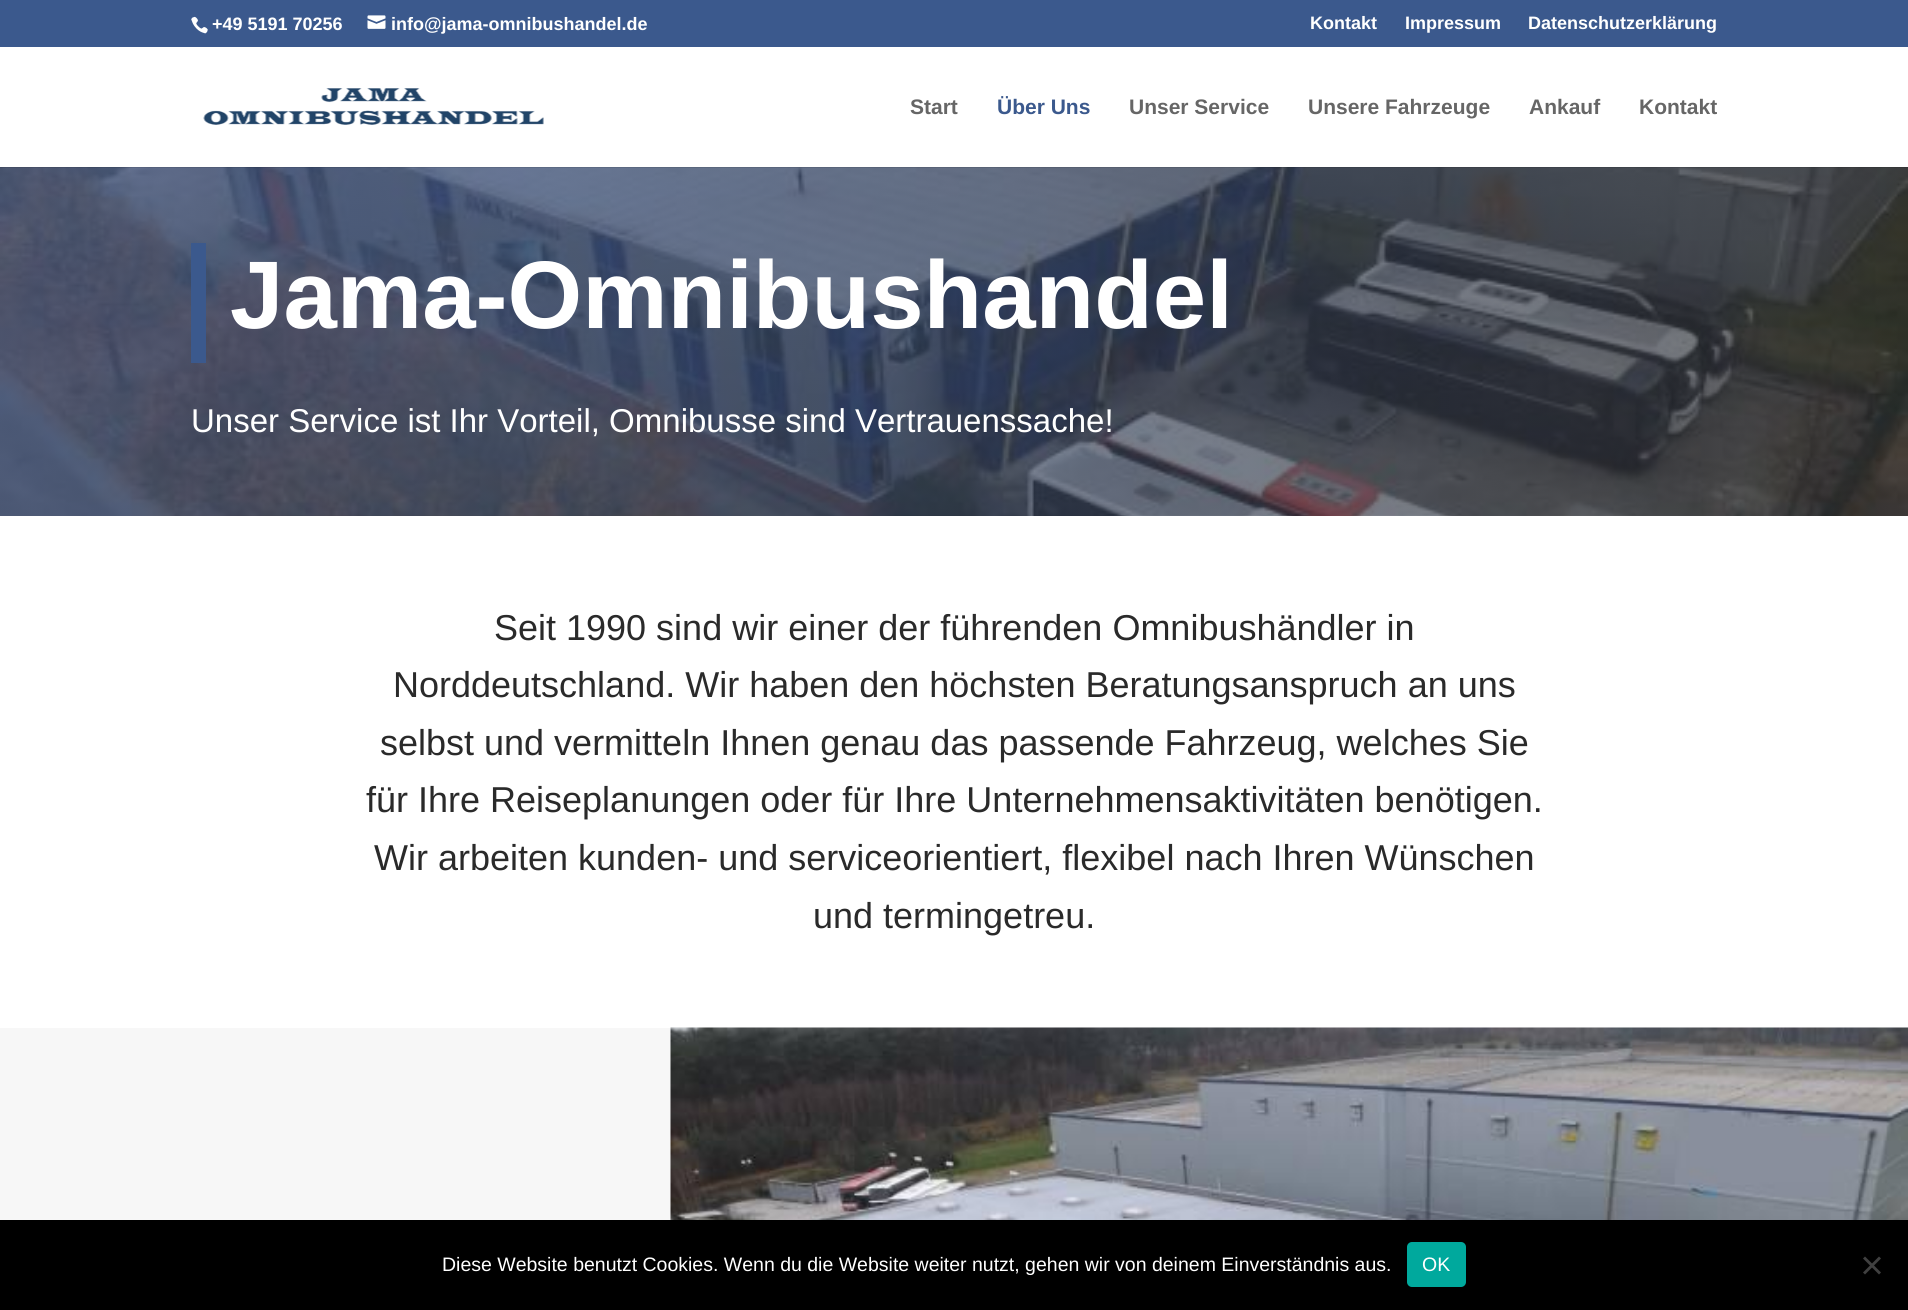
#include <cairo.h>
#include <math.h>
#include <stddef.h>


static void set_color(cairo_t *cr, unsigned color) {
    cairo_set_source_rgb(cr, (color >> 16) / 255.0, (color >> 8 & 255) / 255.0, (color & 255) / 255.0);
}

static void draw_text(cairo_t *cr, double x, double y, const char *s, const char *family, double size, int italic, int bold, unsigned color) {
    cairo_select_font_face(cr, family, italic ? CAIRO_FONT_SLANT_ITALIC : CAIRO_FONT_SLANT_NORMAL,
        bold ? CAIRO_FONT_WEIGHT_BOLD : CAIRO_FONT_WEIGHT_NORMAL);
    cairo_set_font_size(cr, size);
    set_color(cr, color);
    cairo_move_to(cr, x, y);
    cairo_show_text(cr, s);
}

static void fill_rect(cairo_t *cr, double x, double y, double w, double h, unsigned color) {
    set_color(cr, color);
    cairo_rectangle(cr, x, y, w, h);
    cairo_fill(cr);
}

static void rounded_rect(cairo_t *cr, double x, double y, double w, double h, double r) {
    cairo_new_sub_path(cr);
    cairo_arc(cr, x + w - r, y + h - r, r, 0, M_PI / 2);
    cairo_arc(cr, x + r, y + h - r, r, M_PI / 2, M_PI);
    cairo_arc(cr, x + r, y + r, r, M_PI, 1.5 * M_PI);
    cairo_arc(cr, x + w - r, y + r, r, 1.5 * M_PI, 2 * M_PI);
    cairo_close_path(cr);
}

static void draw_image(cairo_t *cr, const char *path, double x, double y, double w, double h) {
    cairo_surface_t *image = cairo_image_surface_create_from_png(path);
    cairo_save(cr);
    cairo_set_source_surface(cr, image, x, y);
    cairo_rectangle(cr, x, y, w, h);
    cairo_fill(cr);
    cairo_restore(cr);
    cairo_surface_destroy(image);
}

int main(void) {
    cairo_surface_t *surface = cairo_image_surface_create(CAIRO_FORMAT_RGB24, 1908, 1310);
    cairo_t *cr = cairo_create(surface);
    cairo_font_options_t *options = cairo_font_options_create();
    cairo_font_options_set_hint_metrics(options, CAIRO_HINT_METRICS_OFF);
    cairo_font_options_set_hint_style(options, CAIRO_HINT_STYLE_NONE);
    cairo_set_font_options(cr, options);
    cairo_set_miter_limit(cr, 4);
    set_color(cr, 0x3B598D);
    cairo_paint(cr);
    draw_image(cr, "assets/img1.png", 191, 16, 17, 18);
    draw_text(cr, 212, 30, "+49 5191 70256", "Liberation Sans", 18, 0, 1, 0xFFFFFF);
    draw_image(cr, "assets/img2.png", 367, 15, 19, 14);
    draw_text(cr, 391, 30, "info@jama-omnibushandel.de", "Liberation Sans", 18, 0, 1, 0xFFFFFF);
    draw_text(cr, 1310, 29, "Kontakt", "Liberation Sans", 18, 0, 1, 0xFFFFFF);
    draw_text(cr, 1405, 29, "Impressum", "Liberation Sans", 18, 0, 1, 0xFFFFFF);
    draw_text(cr, 1528, 29, "Datenschutzerklärung", "Liberation Sans", 18, 0, 1, 0xFFFFFF);
    draw_image(cr, "assets/img4.png", 0, 167, 1908, 349);
    cairo_set_source_rgba(cr, 0, 0, 0, 0.1);
    cairo_rectangle(cr, 0, 167, 1908, 1);
    cairo_fill(cr);
    fill_rect(cr, 0, 47, 1908, 120, 0xFFFFFF);
    draw_image(cr, "assets/img3.png", 203, 88, 341, 37);
    draw_text(cr, 910, 114, "Start", "Liberation Sans", 21, 0, 1, 0x666666);
    draw_text(cr, 997, 114, "Über Uns", "Liberation Sans", 21, 0, 1, 0x3B598D);
    draw_text(cr, 1129, 114, "Unser Service", "Liberation Sans", 21, 0, 1, 0x666666);
    draw_text(cr, 1308, 114, "Unsere Fahrzeuge", "Liberation Sans", 21, 0, 1, 0x666666);
    draw_text(cr, 1529, 114, "Ankauf", "Liberation Sans", 21, 0, 1, 0x666666);
    draw_text(cr, 1639, 114, "Kontakt", "Liberation Sans", 21, 0, 1, 0x666666);
    fill_rect(cr, 191, 243, 15, 120, 0x3B598D);
    draw_text(cr, 230, 328, "Jama-Omnibushandel", "Liberation Sans", 96, 0, 1, 0xFFFFFF);
    draw_text(cr, 191, 432, "Unser Service ist Ihr Vorteil, Omnibusse sind Vertrauenssache!", "Liberation Sans", 33, 0, 0, 0xFFFFFF);
    fill_rect(cr, 0, 516, 1908, 512, 0xFFFFFF);
    draw_text(cr, 494, 640, "Seit 1990 sind wir einer der führenden Omnibushändler in", "Liberation Sans", 36, 0, 0, 0x2A2A2A);
    draw_text(cr, 393, 697, "Norddeutschland. Wir haben den höchsten Beratungsanspruch an uns", "Liberation Sans", 36, 0, 0, 0x2A2A2A);
    draw_text(cr, 380, 755, "selbst und vermitteln Ihnen genau das passende Fahrzeug, welches Sie", "Liberation Sans", 36, 0, 0, 0x2A2A2A);
    draw_text(cr, 366, 812, "für Ihre Reiseplanungen oder für Ihre Unternehmensaktivitäten benötigen.", "Liberation Sans", 36, 0, 0, 0x2A2A2A);
    draw_text(cr, 374, 870, "Wir arbeiten kunden- und serviceorientiert, flexibel nach Ihren Wünschen", "Liberation Sans", 36, 0, 0, 0x2A2A2A);
    draw_text(cr, 813, 928, "und termingetreu.", "Liberation Sans", 36, 0, 0, 0x2A2A2A);
    fill_rect(cr, 0, 1028, 671, 192, 0xF7F7F7);
    draw_image(cr, "assets/img5.png", 670, 1027, 1238, 193);
    fill_rect(cr, 0, 1220, 1908, 90, 0x000000);
    draw_text(cr, 442, 1271, "Diese Website benutzt Cookies. Wenn du die Website weiter nutzt, gehen wir von deinem Einverständnis aus.", "Liberation Sans", 19.5, 0, 0, 0xFFFFFF);
    set_color(cr, 0x00A99D);
    rounded_rect(cr, 1407, 1242, 59, 45, 5);
    cairo_fill(cr);
    draw_text(cr, 1422, 1271, "OK", "Liberation Sans", 19.5, 0, 0, 0xFFFFFF);
    set_color(cr, 0x404040);
    cairo_new_path(cr);
    cairo_move_to(cr, 1879, 1256.5);
    cairo_line_to(cr, 1881, 1258.5);
    cairo_line_to(cr, 1865, 1274.5);
    cairo_line_to(cr, 1863, 1272.5);
    cairo_close_path(cr);
    cairo_fill(cr);
    cairo_new_path(cr);
    cairo_move_to(cr, 1863, 1258.5);
    cairo_line_to(cr, 1865, 1256.5);
    cairo_line_to(cr, 1881, 1272.5);
    cairo_line_to(cr, 1879, 1274.5);
    cairo_close_path(cr);
    cairo_fill(cr);
    cairo_surface_write_to_png(surface, "output.png");
    cairo_font_options_destroy(options);
    cairo_destroy(cr);
    cairo_surface_destroy(surface);
    return 0;
}
